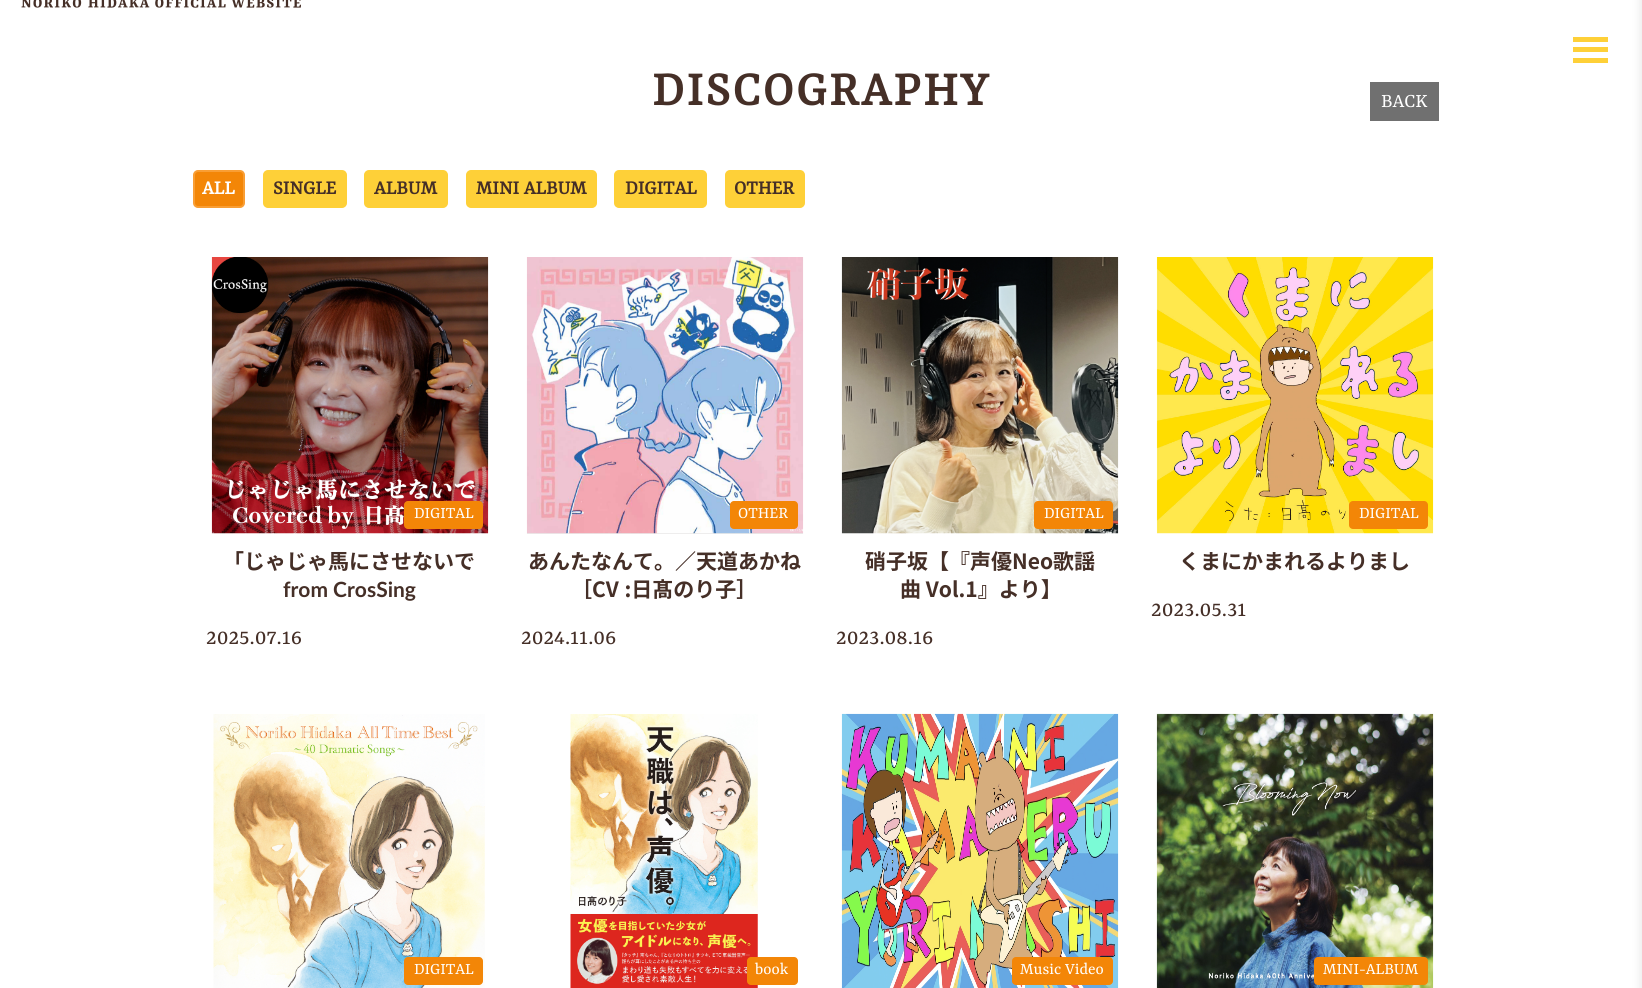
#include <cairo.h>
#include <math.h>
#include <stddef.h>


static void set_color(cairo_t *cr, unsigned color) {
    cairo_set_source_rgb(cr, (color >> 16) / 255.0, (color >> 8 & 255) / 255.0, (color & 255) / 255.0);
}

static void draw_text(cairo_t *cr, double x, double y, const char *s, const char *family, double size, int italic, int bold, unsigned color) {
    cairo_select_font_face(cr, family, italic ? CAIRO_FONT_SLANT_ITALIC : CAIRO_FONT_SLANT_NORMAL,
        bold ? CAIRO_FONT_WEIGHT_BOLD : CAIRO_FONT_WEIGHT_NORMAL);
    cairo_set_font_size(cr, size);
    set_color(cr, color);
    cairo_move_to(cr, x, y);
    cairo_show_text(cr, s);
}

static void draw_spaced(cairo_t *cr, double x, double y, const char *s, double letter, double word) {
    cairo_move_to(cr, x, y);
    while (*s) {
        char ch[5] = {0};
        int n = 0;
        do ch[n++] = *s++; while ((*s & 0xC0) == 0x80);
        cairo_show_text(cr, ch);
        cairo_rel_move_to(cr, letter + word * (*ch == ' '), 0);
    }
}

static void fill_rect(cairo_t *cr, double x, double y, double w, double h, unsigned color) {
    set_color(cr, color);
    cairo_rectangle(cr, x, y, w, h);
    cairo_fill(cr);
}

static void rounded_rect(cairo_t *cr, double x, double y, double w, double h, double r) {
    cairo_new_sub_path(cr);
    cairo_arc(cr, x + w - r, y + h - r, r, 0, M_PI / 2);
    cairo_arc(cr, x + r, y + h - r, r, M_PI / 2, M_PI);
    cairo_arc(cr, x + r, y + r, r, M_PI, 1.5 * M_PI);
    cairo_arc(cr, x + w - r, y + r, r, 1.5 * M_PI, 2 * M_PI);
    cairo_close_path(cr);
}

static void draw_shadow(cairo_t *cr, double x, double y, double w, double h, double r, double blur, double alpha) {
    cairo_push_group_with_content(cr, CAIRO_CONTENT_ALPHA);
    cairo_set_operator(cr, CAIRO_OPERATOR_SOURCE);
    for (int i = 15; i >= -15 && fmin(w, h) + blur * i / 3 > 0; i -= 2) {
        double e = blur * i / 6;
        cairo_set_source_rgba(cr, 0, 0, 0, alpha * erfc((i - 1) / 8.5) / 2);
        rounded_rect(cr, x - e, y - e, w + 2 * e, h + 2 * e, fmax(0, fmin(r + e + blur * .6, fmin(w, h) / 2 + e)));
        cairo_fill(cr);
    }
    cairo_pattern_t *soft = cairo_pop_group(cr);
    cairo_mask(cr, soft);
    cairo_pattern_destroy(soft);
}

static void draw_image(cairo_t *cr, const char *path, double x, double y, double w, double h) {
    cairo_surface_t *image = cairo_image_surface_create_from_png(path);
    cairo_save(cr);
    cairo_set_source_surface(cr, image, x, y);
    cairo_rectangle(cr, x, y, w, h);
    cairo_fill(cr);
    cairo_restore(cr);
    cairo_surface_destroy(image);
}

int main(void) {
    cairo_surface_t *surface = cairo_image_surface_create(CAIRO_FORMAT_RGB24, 1642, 988);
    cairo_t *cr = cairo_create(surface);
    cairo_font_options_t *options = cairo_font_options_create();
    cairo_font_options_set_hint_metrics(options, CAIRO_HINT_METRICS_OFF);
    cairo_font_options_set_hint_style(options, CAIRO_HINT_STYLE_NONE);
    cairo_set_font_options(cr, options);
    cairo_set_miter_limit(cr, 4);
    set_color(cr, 0xFFFFFF);
    cairo_paint(cr);
    draw_image(cr, "assets/img1.png", 21, 0, 280, 8);
    set_color(cr, 0x999999);
    draw_shadow(cr, 1640, -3, 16, 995, 0, 4.5, 0.2);
    fill_rect(cr, 1573, 47, 35, 5, 0xFED038);
    fill_rect(cr, 1573, 37, 35, 5, 0xFED038);
    fill_rect(cr, 1573, 58, 35, 5, 0xFED038);
    cairo_select_font_face(cr, "Rasa", CAIRO_FONT_SLANT_NORMAL, CAIRO_FONT_WEIGHT_BOLD);
    cairo_set_font_size(cr, 52.5);
    set_color(cr, 0x452F27);
    draw_spaced(cr, 652, 105, "DISCOGRAPHY", 2.6, 0);
    fill_rect(cr, 1370, 82, 69, 39, 0x707070);
    draw_text(cr, 1381, 107, "BACK", "Rasa", 21, 0, 0, 0xFFFFFF);
    set_color(cr, 0xF38607);
    rounded_rect(cr, 194, 171, 50, 36, 4);
    cairo_fill_preserve(cr);
    set_color(cr, 0xF99E34);
    cairo_stroke(cr);
    draw_text(cr, 202, 194, "ALL", "Rasa", 21, 0, 1, 0xFFFFFF);
    set_color(cr, 0xFED038);
    rounded_rect(cr, 264, 171, 82, 36, 4);
    cairo_fill_preserve(cr);
    cairo_stroke(cr);
    draw_text(cr, 273, 194, "SINGLE", "Rasa", 21, 0, 1, 0x452F27);
    set_color(cr, 0xFED038);
    rounded_rect(cr, 365, 171, 82, 36, 4);
    cairo_fill_preserve(cr);
    cairo_stroke(cr);
    draw_text(cr, 374, 194, "ALBUM", "Rasa", 21, 0, 1, 0x452F27);
    set_color(cr, 0xFED038);
    rounded_rect(cr, 467, 171, 129, 36, 4);
    cairo_fill_preserve(cr);
    cairo_stroke(cr);
    draw_text(cr, 476, 194, "MINI ALBUM", "Rasa", 21, 0, 1, 0x452F27);
    set_color(cr, 0xFED038);
    rounded_rect(cr, 615, 171, 91, 36, 4);
    cairo_fill_preserve(cr);
    cairo_stroke(cr);
    draw_text(cr, 625, 194, "DIGITAL", "Rasa", 21, 0, 1, 0x452F27);
    set_color(cr, 0xFED038);
    rounded_rect(cr, 726, 171, 78, 36, 4);
    cairo_fill_preserve(cr);
    cairo_stroke(cr);
    draw_text(cr, 734, 194, "OTHER", "Rasa", 21, 0, 1, 0x452F27);
    draw_image(cr, "assets/img2.png", 211, 257, 278, 277);
    set_color(cr, 0xF38607);
    rounded_rect(cr, 404, 501, 79, 28, 4);
    cairo_fill(cr);
    draw_text(cr, 414, 518, "DIGITAL", "Rasa", 17.5, 0, 0, 0xFFFFFF);
    draw_text(cr, 223, 569, "「じゃじゃ馬にさせないで", "Noto Sans JP", 21, 0, 1, 0x452F27);
    draw_text(cr, 283, 597, "from CrosSing", "Lato", 21, 0, 1, 0x452F27);
    draw_text(cr, 206, 644, "2025.07.16", "Rasa", 24.5, 0, 0, 0x452F27);
    draw_image(cr, "assets/img3.png", 526, 257, 278, 277);
    set_color(cr, 0xF38607);
    rounded_rect(cr, 730, 501, 68, 28, 4);
    cairo_fill(cr);
    draw_text(cr, 738, 518, "OTHER", "Rasa", 17.5, 0, 0, 0xFFFFFF);
    draw_text(cr, 528, 569, "あんたなんて。／天道あかね", "Noto Sans JP", 21, 0, 1, 0x452F27);
    draw_spaced(cr, 571, 597, "［CV :日髙のり子］", 0, 1);
    draw_text(cr, 521, 644, "2024.11.06", "Rasa", 24.5, 0, 0, 0x452F27);
    draw_image(cr, "assets/img4.png", 841, 257, 278, 277);
    set_color(cr, 0xF38607);
    rounded_rect(cr, 1034, 501, 79, 28, 4);
    cairo_fill(cr);
    draw_text(cr, 1044, 518, "DIGITAL", "Rasa", 17.5, 0, 0, 0xFFFFFF);
    draw_text(cr, 865, 569, "硝子坂【『声優Neo歌謡", "Noto Sans JP", 21, 0, 1, 0x452F27);
    draw_text(cr, 900, 597, "曲 Vol.1』より】", "Noto Sans JP", 21, 0, 1, 0x452F27);
    draw_text(cr, 836, 644, "2023.08.16", "Rasa", 24.5, 0, 0, 0x452F27);
    draw_image(cr, "assets/img5.png", 1156, 257, 278, 277);
    set_color(cr, 0xF38607);
    rounded_rect(cr, 1349, 501, 79, 28, 4);
    cairo_fill(cr);
    draw_text(cr, 1359, 518, "DIGITAL", "Rasa", 17.5, 0, 0, 0xFFFFFF);
    draw_text(cr, 1179, 569, "くまにかまれるよりまし", "Noto Sans JP", 21, 0, 1, 0x452F27);
    draw_text(cr, 1151, 616, "2023.05.31", "Rasa", 24.5, 0, 0, 0x452F27);
    draw_image(cr, "assets/img6.png", 213, 714, 272, 274);
    set_color(cr, 0xF38607);
    rounded_rect(cr, 404, 957, 79, 28, 4);
    cairo_fill(cr);
    draw_text(cr, 414, 974, "DIGITAL", "Rasa", 17.5, 0, 0, 0xFFFFFF);
    draw_image(cr, "assets/img7.png", 570, 714, 188, 274);
    set_color(cr, 0xF38607);
    rounded_rect(cr, 747, 957, 51, 28, 4);
    cairo_fill(cr);
    draw_text(cr, 755, 974, "book", "Rasa", 17.5, 0, 0, 0xFFFFFF);
    draw_image(cr, "assets/img8.png", 841, 713, 278, 275);
    set_color(cr, 0xF38607);
    rounded_rect(cr, 1012, 957, 101, 28, 4);
    cairo_fill(cr);
    draw_text(cr, 1020, 974, "Music Video", "Rasa", 17.5, 0, 0, 0xFFFFFF);
    draw_image(cr, "assets/img9.png", 1156, 713, 278, 275);
    set_color(cr, 0xF38607);
    rounded_rect(cr, 1314, 957, 114, 28, 4);
    cairo_fill(cr);
    draw_text(cr, 1323, 974, "MINI-ALBUM", "Rasa", 17.5, 0, 0, 0xFFFFFF);
    cairo_surface_write_to_png(surface, "output.png");
    cairo_font_options_destroy(options);
    cairo_destroy(cr);
    cairo_surface_destroy(surface);
    return 0;
}
